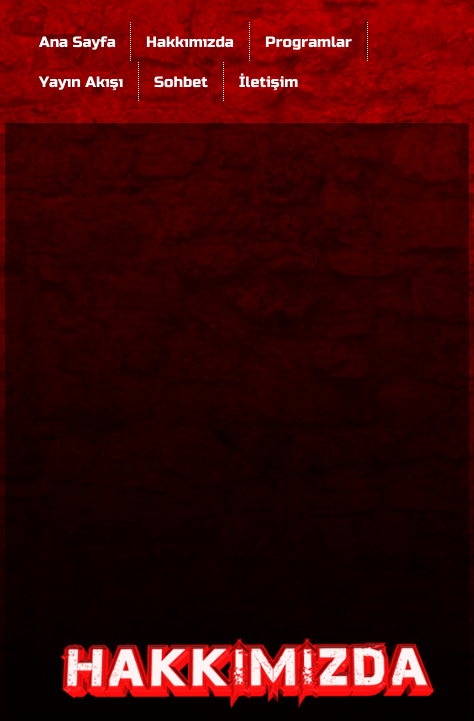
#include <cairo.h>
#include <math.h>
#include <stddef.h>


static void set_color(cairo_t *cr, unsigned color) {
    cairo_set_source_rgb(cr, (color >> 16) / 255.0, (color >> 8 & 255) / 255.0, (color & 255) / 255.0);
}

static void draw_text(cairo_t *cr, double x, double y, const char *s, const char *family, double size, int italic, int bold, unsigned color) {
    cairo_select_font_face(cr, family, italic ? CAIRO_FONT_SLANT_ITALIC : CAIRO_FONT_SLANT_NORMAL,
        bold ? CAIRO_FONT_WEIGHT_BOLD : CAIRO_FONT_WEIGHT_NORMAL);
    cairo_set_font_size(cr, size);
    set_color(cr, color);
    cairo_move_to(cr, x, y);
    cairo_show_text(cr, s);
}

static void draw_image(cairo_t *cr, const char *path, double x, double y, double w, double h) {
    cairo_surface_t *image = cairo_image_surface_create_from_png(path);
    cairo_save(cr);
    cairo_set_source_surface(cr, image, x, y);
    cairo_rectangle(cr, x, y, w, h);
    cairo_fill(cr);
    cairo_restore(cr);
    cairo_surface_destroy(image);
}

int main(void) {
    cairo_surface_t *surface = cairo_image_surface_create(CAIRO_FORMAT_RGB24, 474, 721);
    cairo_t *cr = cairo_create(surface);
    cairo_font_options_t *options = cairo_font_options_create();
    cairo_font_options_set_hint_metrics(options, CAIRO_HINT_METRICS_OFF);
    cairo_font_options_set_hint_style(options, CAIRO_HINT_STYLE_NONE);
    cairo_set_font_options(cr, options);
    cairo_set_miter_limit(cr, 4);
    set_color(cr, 0xFFFFFF);
    cairo_paint(cr);
    draw_image(cr, "assets/img1.png", 0, 0, 474, 721);
    cairo_new_path(cr);
    cairo_move_to(cr, 130.5, 22);
    cairo_line_to(cr, 130.5, 62);
    set_color(cr, 0xFFFFFF);
    cairo_set_line_width(cr, 1);
    cairo_set_dash(cr, (double[]){1, 1}, 2, 0);
    cairo_stroke(cr);
    draw_text(cr, 39, 47, "Ana Sayfa", "Russo One", 15, 0, 0, 0xFFFFFF);
    cairo_new_path(cr);
    cairo_move_to(cr, 249.5, 22);
    cairo_line_to(cr, 249.5, 62);
    cairo_stroke(cr);
    draw_text(cr, 146, 47, "Hakkımızda", "Russo One", 15, 0, 0, 0xFFFFFF);
    cairo_new_path(cr);
    cairo_move_to(cr, 367.5, 22);
    cairo_line_to(cr, 367.5, 62);
    cairo_stroke(cr);
    draw_text(cr, 265, 47, "Programlar", "Russo One", 15, 0, 0, 0xFFFFFF);
    cairo_new_path(cr);
    cairo_move_to(cr, 138.5, 62);
    cairo_line_to(cr, 138.5, 102);
    cairo_stroke(cr);
    draw_text(cr, 39, 87, "Yayın Akışı", "Russo One", 15, 0, 0, 0xFFFFFF);
    cairo_new_path(cr);
    cairo_move_to(cr, 223.5, 62);
    cairo_line_to(cr, 223.5, 102);
    cairo_stroke(cr);
    draw_text(cr, 154, 87, "Sohbet", "Russo One", 15, 0, 0, 0xFFFFFF);
    draw_text(cr, 239, 87, "İletişim", "Russo One", 15, 0, 0, 0xFFFFFF);
    cairo_set_source_rgba(cr, 0, 0, 0, 0.5);
    cairo_rectangle(cr, 5, 123, 464, 598);
    cairo_fill(cr);
    draw_image(cr, "assets/img2.png", 60, 637, 374, 72);
    cairo_surface_write_to_png(surface, "output.png");
    cairo_font_options_destroy(options);
    cairo_destroy(cr);
    cairo_surface_destroy(surface);
    return 0;
}
